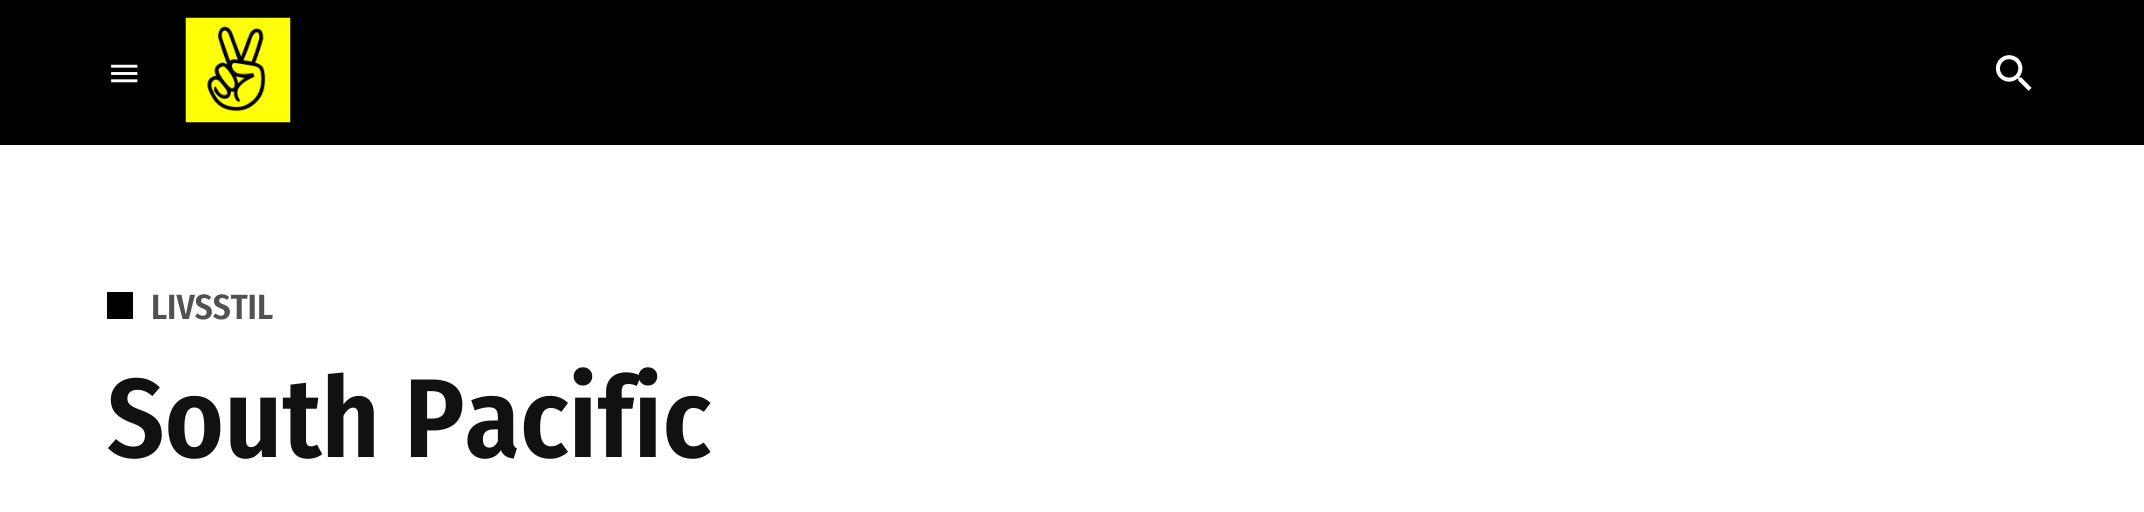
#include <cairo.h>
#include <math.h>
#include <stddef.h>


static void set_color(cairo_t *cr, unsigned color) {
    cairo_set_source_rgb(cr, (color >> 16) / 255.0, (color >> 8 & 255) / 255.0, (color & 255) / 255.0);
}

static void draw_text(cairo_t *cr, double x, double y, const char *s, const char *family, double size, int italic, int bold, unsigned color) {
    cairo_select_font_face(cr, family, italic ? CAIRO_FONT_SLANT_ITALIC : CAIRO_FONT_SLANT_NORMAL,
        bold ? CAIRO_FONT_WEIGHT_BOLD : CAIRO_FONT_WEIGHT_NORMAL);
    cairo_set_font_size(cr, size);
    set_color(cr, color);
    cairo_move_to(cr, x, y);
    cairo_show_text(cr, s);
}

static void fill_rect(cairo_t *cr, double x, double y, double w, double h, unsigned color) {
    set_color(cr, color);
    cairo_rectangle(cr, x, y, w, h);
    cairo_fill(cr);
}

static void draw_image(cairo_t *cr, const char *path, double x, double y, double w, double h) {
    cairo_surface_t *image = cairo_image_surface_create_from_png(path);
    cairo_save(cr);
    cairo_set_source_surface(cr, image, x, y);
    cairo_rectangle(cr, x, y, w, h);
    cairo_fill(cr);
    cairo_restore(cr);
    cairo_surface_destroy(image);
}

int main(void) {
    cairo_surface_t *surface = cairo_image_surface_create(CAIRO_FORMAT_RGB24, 2144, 512);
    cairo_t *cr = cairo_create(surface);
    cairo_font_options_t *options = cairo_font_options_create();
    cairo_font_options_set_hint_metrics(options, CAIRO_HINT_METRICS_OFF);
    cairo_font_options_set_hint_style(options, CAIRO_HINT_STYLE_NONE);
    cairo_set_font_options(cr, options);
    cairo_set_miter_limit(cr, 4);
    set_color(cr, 0xFFFFFF);
    cairo_paint(cr);
    fill_rect(cr, 0, 0, 2144, 145, 0x000000);
    draw_image(cr, "assets/img1.png", 111, 64, 27, 19);
    draw_image(cr, "assets/img2.png", 185, 17, 106, 106);
    draw_image(cr, "assets/img3.png", 1995, 55, 37, 36);
    fill_rect(cr, 107, 292, 26, 27, 0x000000);
    draw_text(cr, 151, 319, "LIVSSTIL", "Fira Sans Condensed SemiBold", 35, 0, 0, 0x515151);
    draw_text(cr, 107, 457, "South Pacific", "Fira Sans Condensed SemiBold", 112, 0, 0, 0x111111);
    cairo_surface_write_to_png(surface, "output.png");
    cairo_font_options_destroy(options);
    cairo_destroy(cr);
    cairo_surface_destroy(surface);
    return 0;
}
